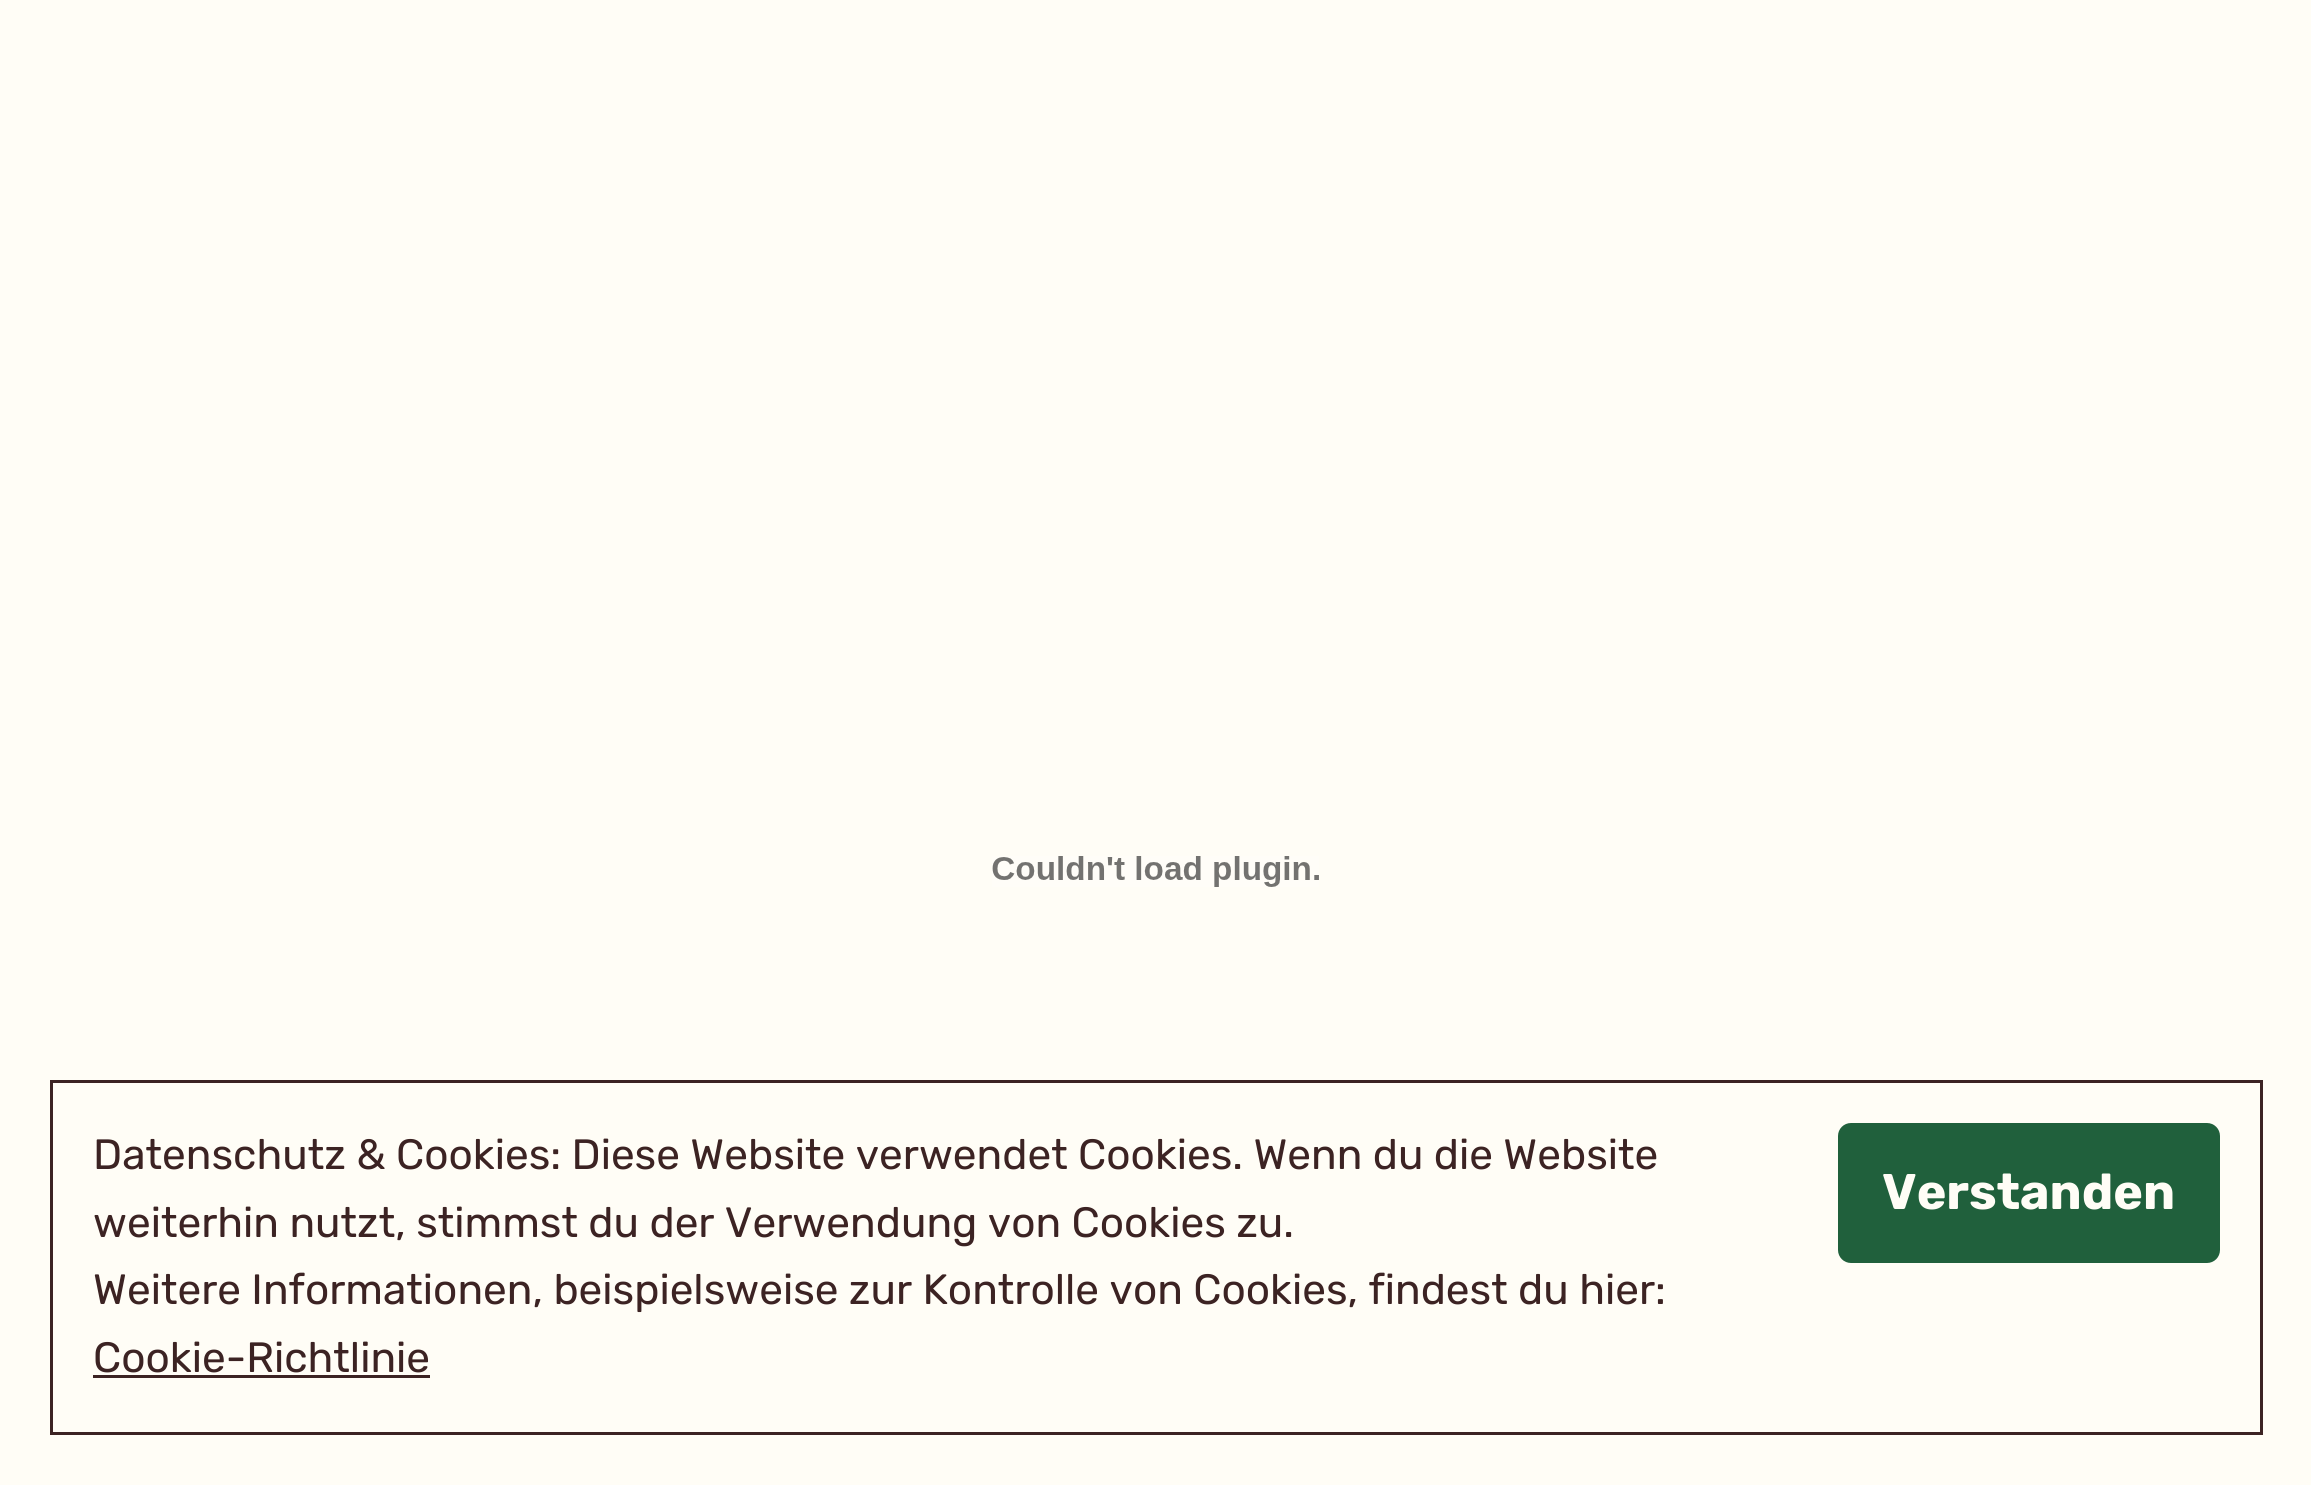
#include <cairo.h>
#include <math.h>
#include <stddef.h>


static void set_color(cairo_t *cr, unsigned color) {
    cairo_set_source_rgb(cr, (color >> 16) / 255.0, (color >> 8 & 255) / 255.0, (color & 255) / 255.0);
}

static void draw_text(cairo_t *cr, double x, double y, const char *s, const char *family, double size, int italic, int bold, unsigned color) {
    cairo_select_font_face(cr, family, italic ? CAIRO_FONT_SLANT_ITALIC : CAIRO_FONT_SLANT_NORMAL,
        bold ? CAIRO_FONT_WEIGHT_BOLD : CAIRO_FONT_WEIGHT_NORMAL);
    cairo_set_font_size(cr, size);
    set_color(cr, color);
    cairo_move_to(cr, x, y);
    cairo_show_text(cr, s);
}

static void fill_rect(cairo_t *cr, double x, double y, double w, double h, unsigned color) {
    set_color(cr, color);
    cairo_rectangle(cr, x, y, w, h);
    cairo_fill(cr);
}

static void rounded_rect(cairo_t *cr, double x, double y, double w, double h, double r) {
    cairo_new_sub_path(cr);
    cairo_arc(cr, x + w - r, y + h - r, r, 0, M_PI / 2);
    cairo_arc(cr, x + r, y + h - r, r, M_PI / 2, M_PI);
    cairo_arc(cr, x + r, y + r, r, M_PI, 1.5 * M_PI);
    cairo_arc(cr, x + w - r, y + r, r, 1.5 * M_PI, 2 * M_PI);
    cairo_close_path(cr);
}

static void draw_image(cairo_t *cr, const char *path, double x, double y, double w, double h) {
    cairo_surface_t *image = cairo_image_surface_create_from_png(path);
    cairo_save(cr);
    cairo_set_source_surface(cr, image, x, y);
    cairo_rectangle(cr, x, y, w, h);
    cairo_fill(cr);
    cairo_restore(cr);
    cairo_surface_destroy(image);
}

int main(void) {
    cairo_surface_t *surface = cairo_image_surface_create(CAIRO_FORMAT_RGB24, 2311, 1485);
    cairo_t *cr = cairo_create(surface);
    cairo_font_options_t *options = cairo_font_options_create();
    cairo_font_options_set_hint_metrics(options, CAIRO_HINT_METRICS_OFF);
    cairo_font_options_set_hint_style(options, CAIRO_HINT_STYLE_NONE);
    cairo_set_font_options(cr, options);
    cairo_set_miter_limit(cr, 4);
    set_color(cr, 0xFFFDF6);
    cairo_paint(cr);
    draw_image(cr, "assets/img1.png", 992, 856, 327, 31);
    cairo_rectangle(cr, 51.5, 1081.5, 2210, 352);
    set_color(cr, 0x3C2323);
    cairo_set_line_width(cr, 3);
    cairo_stroke(cr);
    draw_text(cr, 93, 1169, "Datenschutz & Cookies: Diese Website verwendet Cookies. Wenn du die Website", "Rubik", 42.35, 0, 0, 0x3C2323);
    set_color(cr, 0x20603C);
    rounded_rect(cr, 1838, 1123, 382, 140, 13);
    cairo_fill(cr);
    draw_text(cr, 1882, 1209, "Verstanden", "Rubik", 50, 0, 1, 0xFFFDF6);
    draw_text(cr, 93, 1237, "weiterhin nutzt, stimmst du der Verwendung von Cookies zu.", "Rubik", 42.35, 0, 0, 0x3C2323);
    draw_text(cr, 93, 1304, "Weitere Informationen, beispielsweise zur Kontrolle von Cookies, findest du hier:", "Rubik", 42.35, 0, 0, 0x3C2323);
    draw_text(cr, 93, 1372, "Cookie-Richtlinie", "Rubik", 42.35, 0, 0, 0x3C2323);
    fill_rect(cr, 93, 1375, 337, 3, 0x3C2323);
    cairo_surface_write_to_png(surface, "output.png");
    cairo_font_options_destroy(options);
    cairo_destroy(cr);
    cairo_surface_destroy(surface);
    return 0;
}
